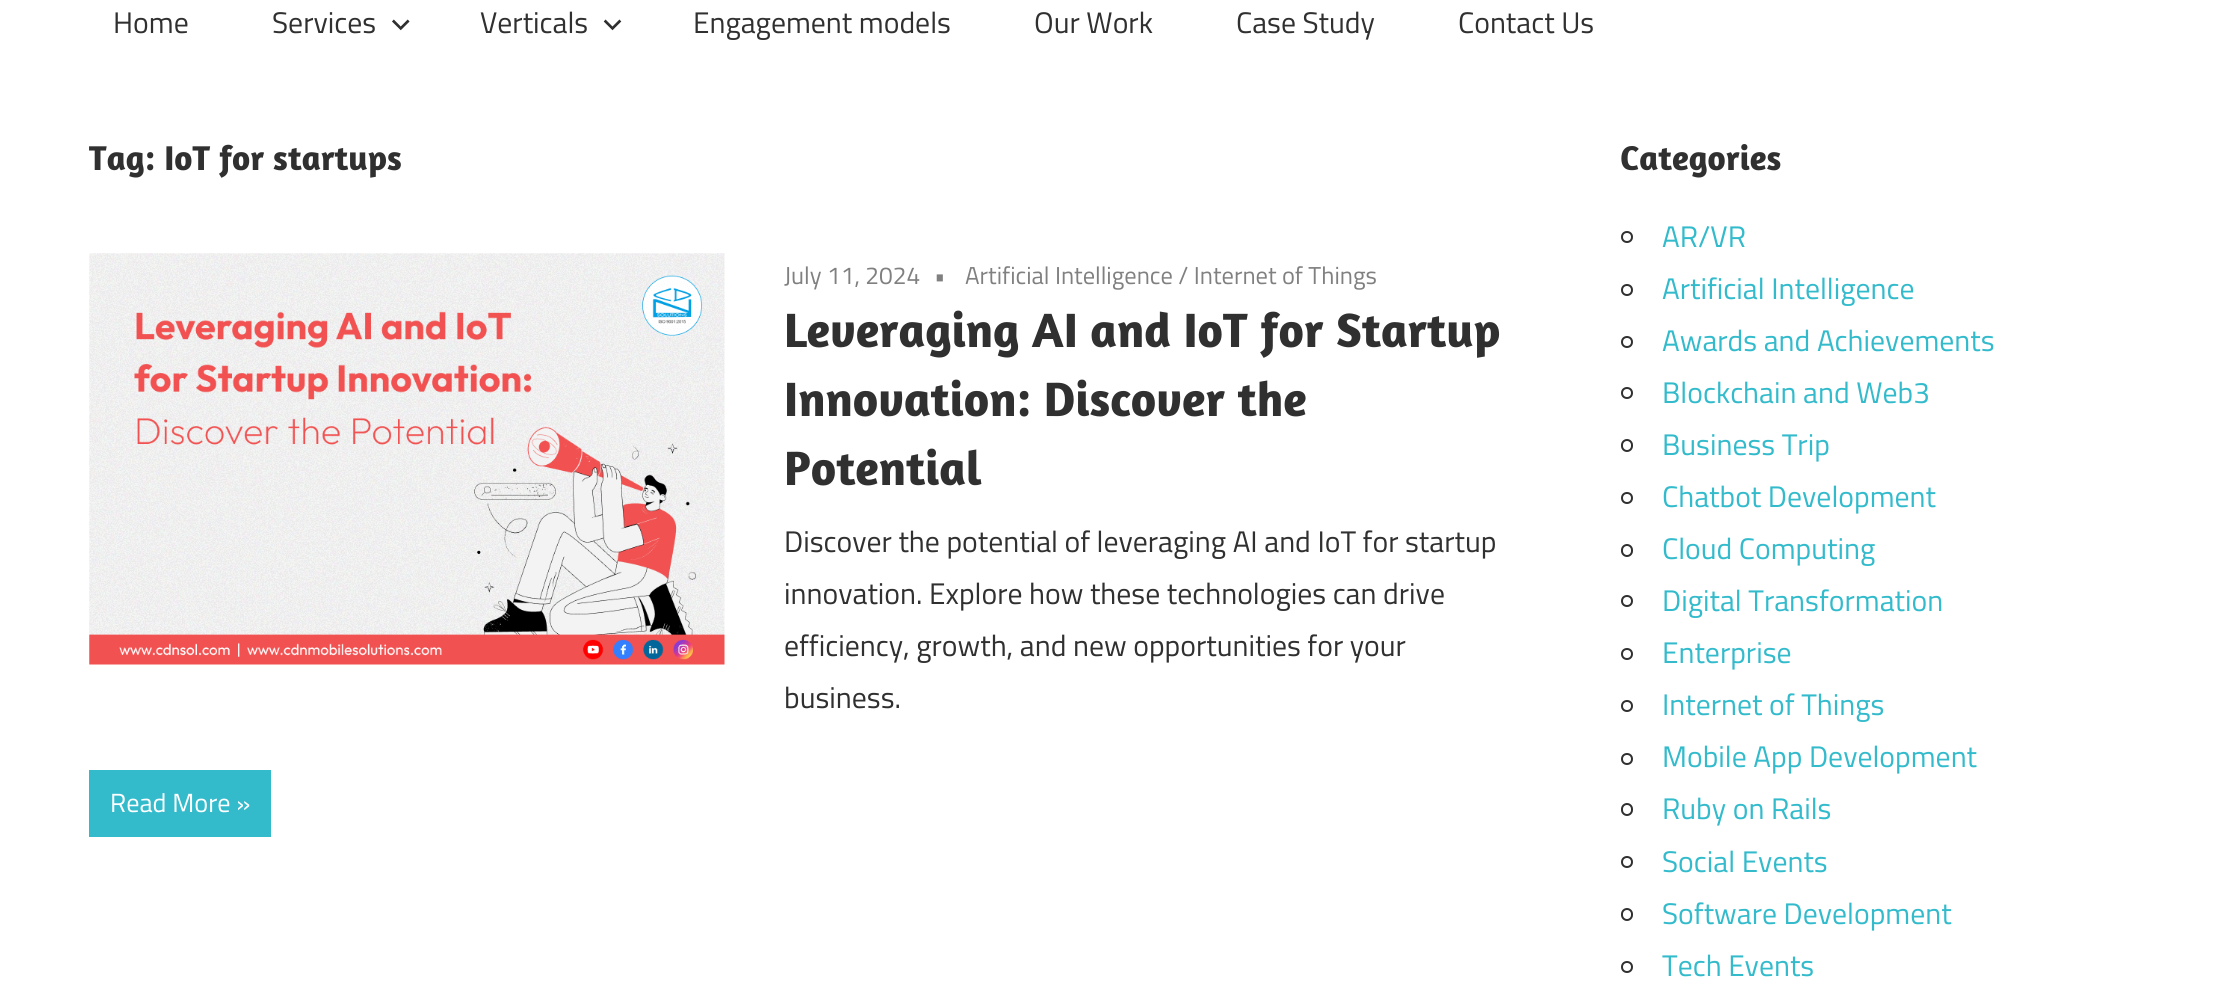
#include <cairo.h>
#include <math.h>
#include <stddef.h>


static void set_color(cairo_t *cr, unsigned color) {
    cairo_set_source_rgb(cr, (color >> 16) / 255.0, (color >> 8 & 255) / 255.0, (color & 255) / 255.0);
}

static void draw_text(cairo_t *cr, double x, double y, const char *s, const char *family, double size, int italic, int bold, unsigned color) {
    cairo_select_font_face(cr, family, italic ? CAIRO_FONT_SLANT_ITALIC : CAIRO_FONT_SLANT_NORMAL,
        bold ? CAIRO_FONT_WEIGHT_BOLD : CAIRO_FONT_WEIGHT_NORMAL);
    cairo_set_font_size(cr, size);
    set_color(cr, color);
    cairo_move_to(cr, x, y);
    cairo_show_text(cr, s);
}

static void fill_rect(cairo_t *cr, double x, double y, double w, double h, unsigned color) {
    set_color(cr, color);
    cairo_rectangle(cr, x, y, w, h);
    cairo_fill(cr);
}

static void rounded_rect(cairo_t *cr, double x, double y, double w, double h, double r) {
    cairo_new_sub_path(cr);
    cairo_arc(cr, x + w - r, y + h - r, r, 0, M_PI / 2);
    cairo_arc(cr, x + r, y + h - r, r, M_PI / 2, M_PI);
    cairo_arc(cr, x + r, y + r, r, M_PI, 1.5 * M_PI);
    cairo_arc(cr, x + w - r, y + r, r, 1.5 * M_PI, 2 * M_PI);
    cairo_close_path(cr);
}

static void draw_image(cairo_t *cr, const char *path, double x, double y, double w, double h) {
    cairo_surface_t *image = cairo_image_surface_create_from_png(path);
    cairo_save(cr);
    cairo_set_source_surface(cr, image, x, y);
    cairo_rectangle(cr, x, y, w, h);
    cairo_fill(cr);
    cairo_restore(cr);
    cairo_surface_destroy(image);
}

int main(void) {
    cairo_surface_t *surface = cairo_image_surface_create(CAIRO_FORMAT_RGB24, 2219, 1005);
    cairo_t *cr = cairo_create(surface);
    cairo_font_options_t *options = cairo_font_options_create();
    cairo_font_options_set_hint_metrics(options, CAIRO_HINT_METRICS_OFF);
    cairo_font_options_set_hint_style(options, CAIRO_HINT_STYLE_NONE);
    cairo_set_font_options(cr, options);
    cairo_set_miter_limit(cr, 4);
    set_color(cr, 0xFFFFFF);
    cairo_paint(cr);
    draw_text(cr, 113, 33, "Home", "Titillium Web", 29.75, 0, 0, 0x303030);
    draw_text(cr, 272, 33, "Services", "Titillium Web", 29.75, 0, 0, 0x303030);
    draw_image(cr, "assets/img1.png", 392, 19, 18, 12);
    draw_text(cr, 480, 33, "Verticals", "Titillium Web", 29.75, 0, 0, 0x303030);
    draw_image(cr, "assets/img2.png", 603, 19, 19, 12);
    draw_text(cr, 693, 33, "Engagement models", "Titillium Web", 29.75, 0, 0, 0x303030);
    draw_text(cr, 1034, 33, "Our Work", "Titillium Web", 29.75, 0, 0, 0x303030);
    draw_text(cr, 1236, 33, "Case Study", "Titillium Web", 29.75, 0, 0, 0x303030);
    draw_text(cr, 1458, 33, "Contact Us", "Titillium Web", 29.75, 0, 0, 0x303030);
    draw_text(cr, 89, 170, "Tag: IoT for startups", "Amaranth", 35, 0, 1, 0x303030);
    draw_image(cr, "assets/img3.png", 89, 253, 636, 412);
    draw_text(cr, 784, 284, "July 11, 2024", "Titillium Web", 24.5, 0, 0, 0x808080);
    draw_text(cr, 934, 284, "•", "Titillium Web", 24.5, 0, 0, 0x808080);
    draw_text(cr, 965, 284, "Artificial Intelligence / Internet of Things", "Titillium Web", 24.5, 0, 0, 0x808080);
    draw_text(cr, 784, 347, "Leveraging AI and IoT for Startup", "Amaranth", 49, 0, 1, 0x303030);
    draw_text(cr, 784, 416, "Innovation: Discover the", "Amaranth", 49, 0, 1, 0x303030);
    draw_text(cr, 784, 485, "Potential", "Amaranth", 49, 0, 1, 0x303030);
    draw_text(cr, 784, 552, "Discover the potential of leveraging AI and IoT for startup", "Titillium Web", 29.75, 0, 0, 0x303030);
    draw_text(cr, 784, 604, "innovation. Explore how these technologies can drive", "Titillium Web", 29.75, 0, 0, 0x303030);
    draw_text(cr, 784, 656, "efficiency, growth, and new opportunities for your", "Titillium Web", 29.75, 0, 0, 0x303030);
    draw_text(cr, 784, 708, "business.", "Titillium Web", 29.75, 0, 0, 0x303030);
    fill_rect(cr, 89, 770, 182, 67, 0x33BBCC);
    draw_text(cr, 110, 812, "Read More »", "Titillium Web", 26.25, 0, 0, 0xFFFFFF);
    draw_text(cr, 1620, 170, "Categories", "Amaranth", 35, 0, 1, 0x303030);
    cairo_new_path(cr);
    cairo_arc(cr, 1627, 237, 5, 0, 2 * M_PI);
    cairo_stroke(cr);
    draw_text(cr, 1662, 247, "AR/VR", "Titillium Web", 29.75, 0, 0, 0x33BBCC);
    cairo_new_path(cr);
    cairo_arc(cr, 1627, 290, 5, 0, 2 * M_PI);
    set_color(cr, 0x303030);
    cairo_stroke(cr);
    draw_text(cr, 1662, 299, "Artificial Intelligence", "Titillium Web", 29.75, 0, 0, 0x33BBCC);
    cairo_new_path(cr);
    cairo_arc(cr, 1627, 342, 5, 0, 2 * M_PI);
    set_color(cr, 0x303030);
    cairo_stroke(cr);
    draw_text(cr, 1662, 351, "Awards and Achievements", "Titillium Web", 29.75, 0, 0, 0x33BBCC);
    cairo_new_path(cr);
    cairo_arc(cr, 1627, 393, 5, 0, 2 * M_PI);
    set_color(cr, 0x303030);
    cairo_stroke(cr);
    draw_text(cr, 1662, 403, "Blockchain and Web3", "Titillium Web", 29.75, 0, 0, 0x33BBCC);
    rounded_rect(cr, 1622, 440, 10, 11, 5);
    set_color(cr, 0x303030);
    cairo_stroke(cr);
    draw_text(cr, 1662, 455, "Business Trip", "Titillium Web", 29.75, 0, 0, 0x33BBCC);
    cairo_new_path(cr);
    cairo_arc(cr, 1627, 498, 5, 0, 2 * M_PI);
    set_color(cr, 0x303030);
    cairo_stroke(cr);
    draw_text(cr, 1662, 507, "Chatbot Development", "Titillium Web", 29.75, 0, 0, 0x33BBCC);
    rounded_rect(cr, 1622, 545, 10, 11, 5);
    set_color(cr, 0x303030);
    cairo_stroke(cr);
    draw_text(cr, 1662, 559, "Cloud Computing", "Titillium Web", 29.75, 0, 0, 0x33BBCC);
    cairo_new_path(cr);
    cairo_arc(cr, 1627, 601, 5, 0, 2 * M_PI);
    set_color(cr, 0x303030);
    cairo_stroke(cr);
    draw_text(cr, 1662, 611, "Digital Transformation", "Titillium Web", 29.75, 0, 0, 0x33BBCC);
    cairo_new_path(cr);
    cairo_arc(cr, 1627, 654, 5, 0, 2 * M_PI);
    set_color(cr, 0x303030);
    cairo_stroke(cr);
    draw_text(cr, 1662, 663, "Enterprise", "Titillium Web", 29.75, 0, 0, 0x33BBCC);
    cairo_new_path(cr);
    cairo_arc(cr, 1627, 706, 5, 0, 2 * M_PI);
    set_color(cr, 0x303030);
    cairo_stroke(cr);
    draw_text(cr, 1662, 715, "Internet of Things", "Titillium Web", 29.75, 0, 0, 0x33BBCC);
    cairo_new_path(cr);
    cairo_arc(cr, 1627, 759, 5, 0, 2 * M_PI);
    set_color(cr, 0x303030);
    cairo_stroke(cr);
    draw_text(cr, 1662, 767, "Mobile App Development", "Titillium Web", 29.75, 0, 0, 0x33BBCC);
    rounded_rect(cr, 1622, 804, 10, 11, 5);
    set_color(cr, 0x303030);
    cairo_stroke(cr);
    draw_text(cr, 1662, 819, "Ruby on Rails", "Titillium Web", 29.75, 0, 0, 0x33BBCC);
    cairo_new_path(cr);
    cairo_arc(cr, 1627, 862, 5, 0, 2 * M_PI);
    set_color(cr, 0x303030);
    cairo_stroke(cr);
    draw_text(cr, 1662, 872, "Social Events", "Titillium Web", 29.75, 0, 0, 0x33BBCC);
    rounded_rect(cr, 1622, 909, 10, 11, 5);
    set_color(cr, 0x303030);
    cairo_stroke(cr);
    draw_text(cr, 1662, 924, "Software Development", "Titillium Web", 29.75, 0, 0, 0x33BBCC);
    cairo_new_path(cr);
    cairo_arc(cr, 1627, 967, 5, 0, 2 * M_PI);
    set_color(cr, 0x303030);
    cairo_stroke(cr);
    draw_text(cr, 1662, 976, "Tech Events", "Titillium Web", 29.75, 0, 0, 0x33BBCC);
    cairo_surface_write_to_png(surface, "output.png");
    cairo_font_options_destroy(options);
    cairo_destroy(cr);
    cairo_surface_destroy(surface);
    return 0;
}
